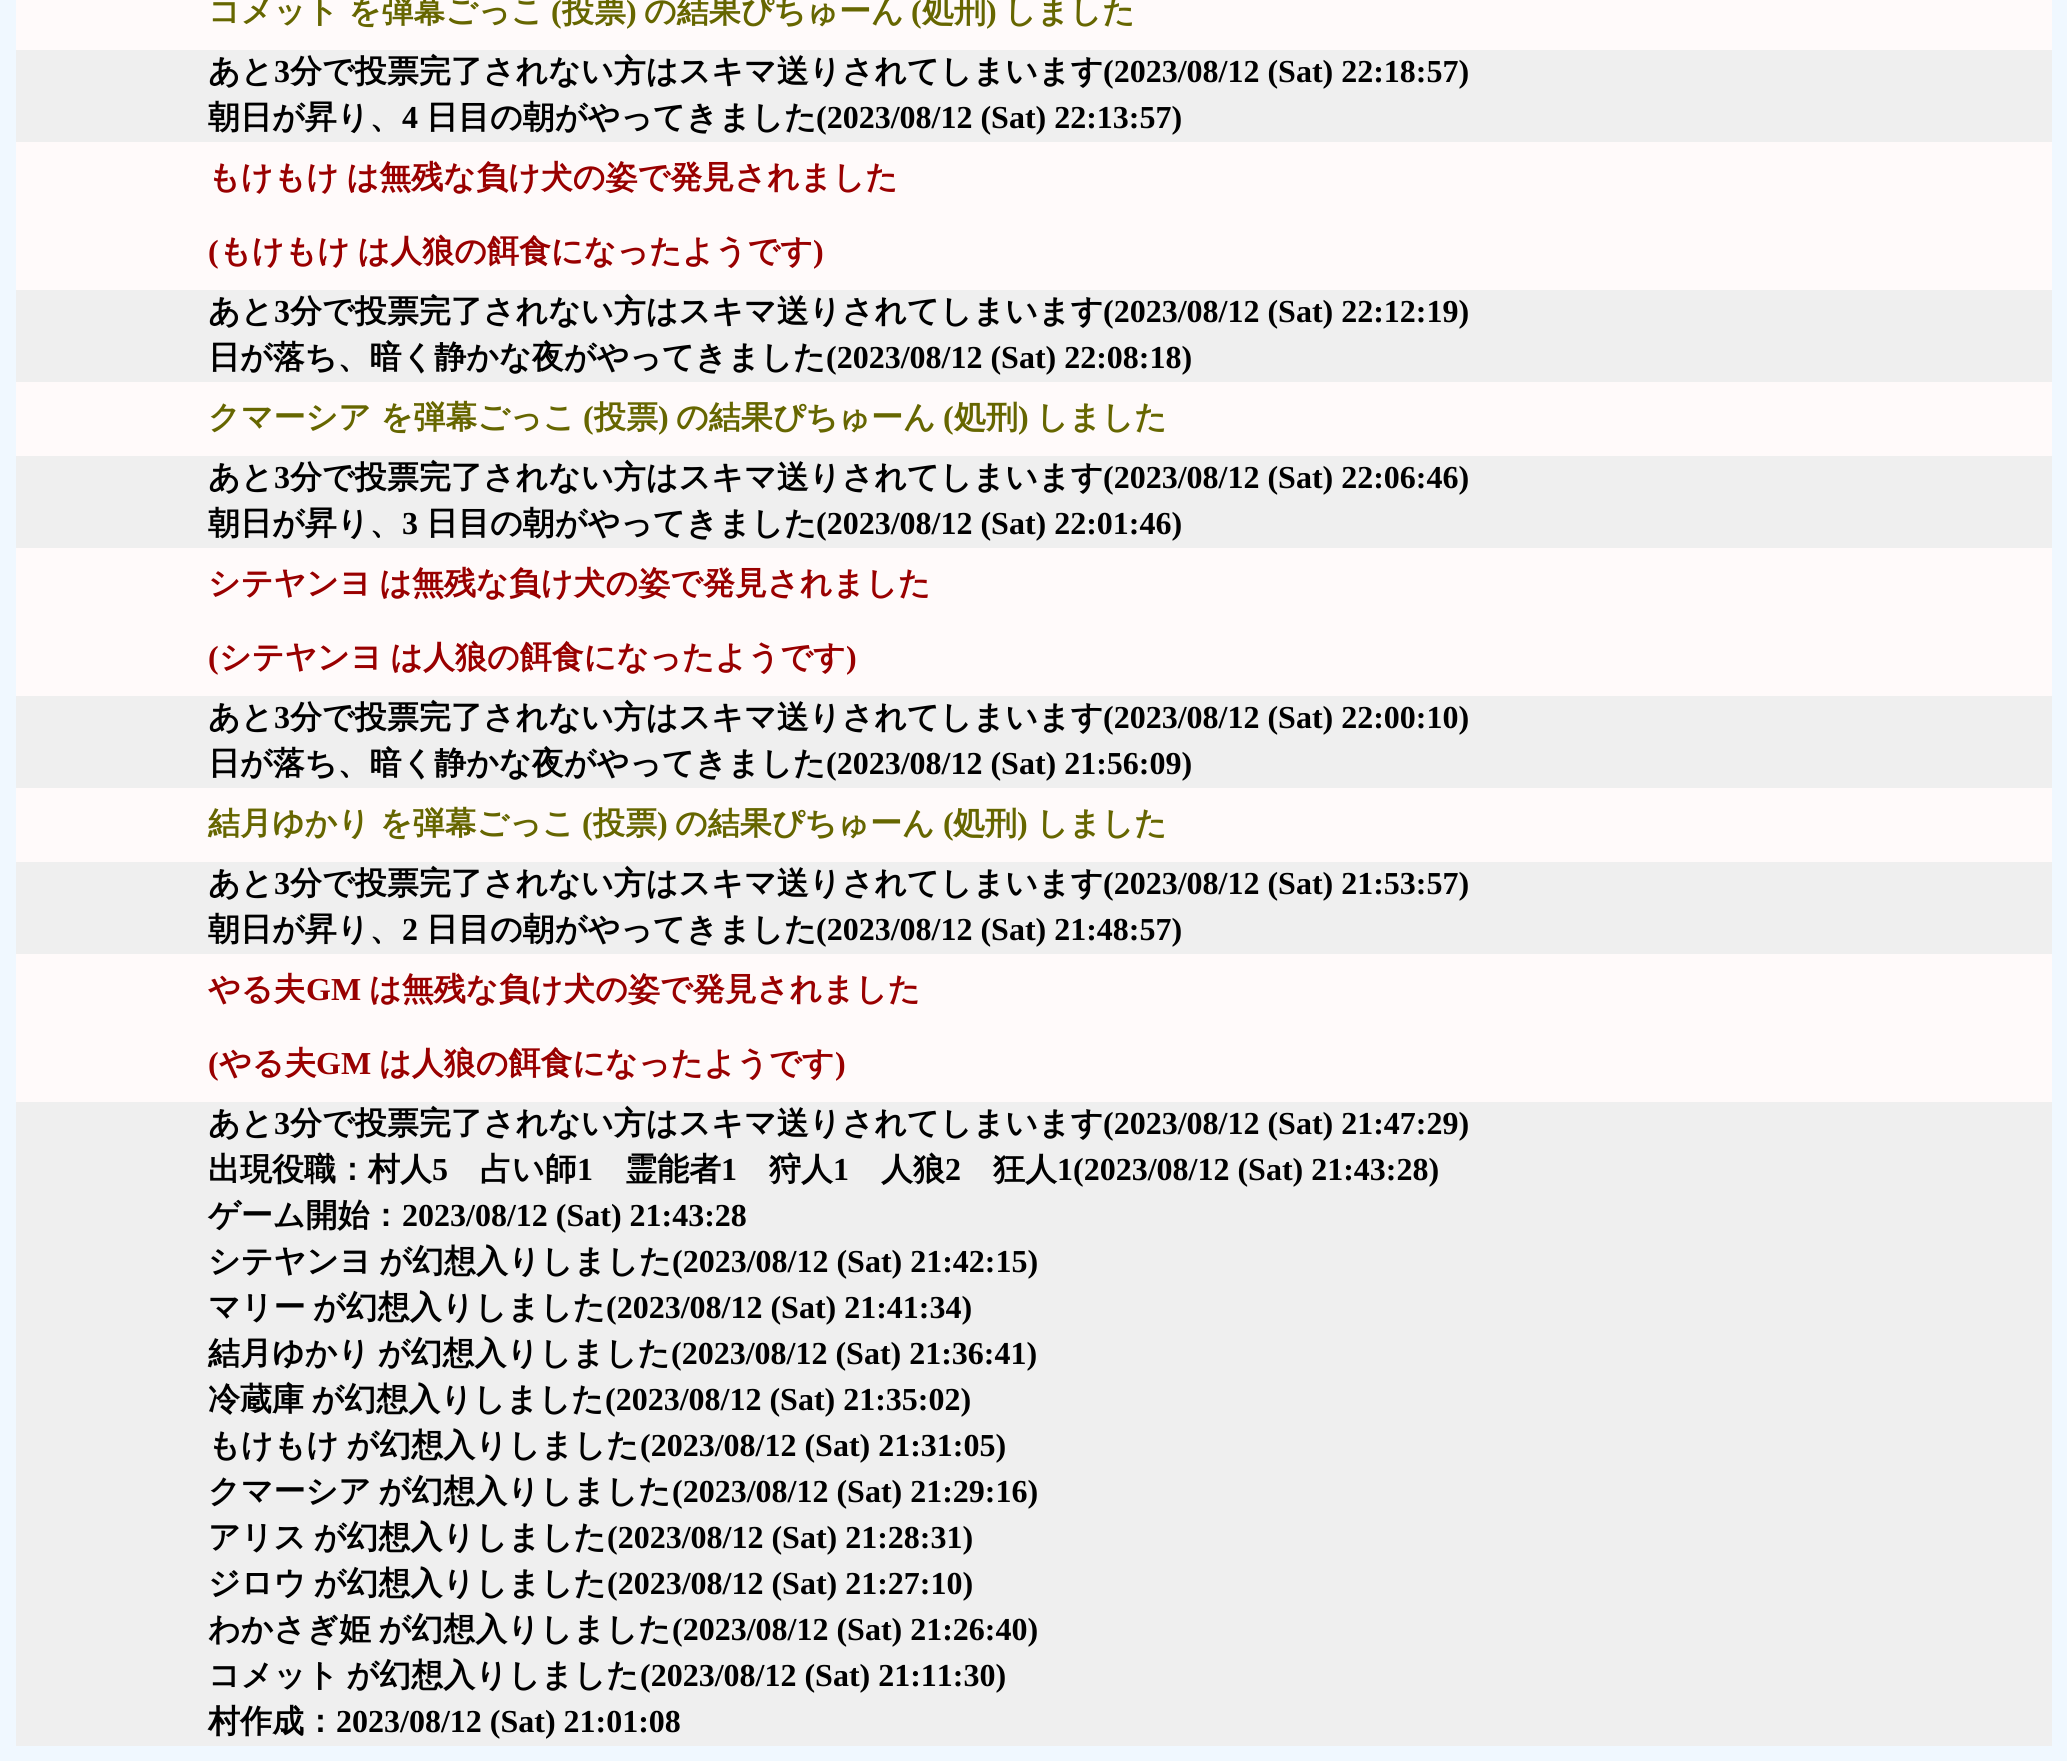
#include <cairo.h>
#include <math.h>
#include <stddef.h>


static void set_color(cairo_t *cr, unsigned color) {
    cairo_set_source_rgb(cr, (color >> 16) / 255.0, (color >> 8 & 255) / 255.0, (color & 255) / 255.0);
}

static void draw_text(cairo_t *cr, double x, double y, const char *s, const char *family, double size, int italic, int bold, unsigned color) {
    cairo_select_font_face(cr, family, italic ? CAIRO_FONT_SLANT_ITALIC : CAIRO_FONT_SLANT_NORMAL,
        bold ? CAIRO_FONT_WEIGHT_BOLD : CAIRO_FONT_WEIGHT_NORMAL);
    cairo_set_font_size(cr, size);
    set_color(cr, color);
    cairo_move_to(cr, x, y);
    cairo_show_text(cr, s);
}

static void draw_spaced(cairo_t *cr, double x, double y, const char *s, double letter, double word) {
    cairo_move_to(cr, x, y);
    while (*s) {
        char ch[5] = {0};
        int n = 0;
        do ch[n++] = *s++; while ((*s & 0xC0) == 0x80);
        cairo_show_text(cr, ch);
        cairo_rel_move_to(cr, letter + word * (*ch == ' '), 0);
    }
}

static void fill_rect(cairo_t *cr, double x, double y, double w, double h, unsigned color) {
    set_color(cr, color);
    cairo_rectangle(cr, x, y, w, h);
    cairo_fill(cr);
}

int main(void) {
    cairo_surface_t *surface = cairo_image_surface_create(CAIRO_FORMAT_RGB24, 2067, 1761);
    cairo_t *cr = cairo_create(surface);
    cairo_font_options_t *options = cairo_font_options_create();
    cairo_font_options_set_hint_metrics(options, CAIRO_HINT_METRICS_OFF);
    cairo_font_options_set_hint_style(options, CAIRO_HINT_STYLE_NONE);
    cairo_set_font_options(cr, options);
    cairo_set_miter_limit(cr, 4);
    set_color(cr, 0xF0F8FF);
    cairo_paint(cr);
    fill_rect(cr, 16, 0, 2036, 50, 0xFFFAFA);
    draw_text(cr, 208, 22, "コメット を弾幕ごっこ", "WenQuanYi Zen Hei", 32, 0, 1, 0x666600);
    draw_text(cr, 551, 22, "(", "Liberation Serif", 32, 0, 1, 0x666600);
    draw_text(cr, 562, 22, "投票", "WenQuanYi Zen Hei", 32, 0, 1, 0x666600);
    draw_text(cr, 626, 22, ")", "Liberation Serif", 32, 0, 1, 0x666600);
    draw_text(cr, 644, 22, "の結果ぴちゅーん", "WenQuanYi Zen Hei", 32, 0, 1, 0x666600);
    draw_text(cr, 911, 22, "(", "Liberation Serif", 32, 0, 1, 0x666600);
    draw_text(cr, 922, 22, "処刑", "WenQuanYi Zen Hei", 32, 0, 1, 0x666600);
    draw_text(cr, 986, 22, ")", "Liberation Serif", 32, 0, 1, 0x666600);
    draw_text(cr, 1004, 22, "しました", "WenQuanYi Zen Hei", 32, 0, 1, 0x666600);
    fill_rect(cr, 16, 50, 2036, 92, 0xEFEFEF);
    draw_text(cr, 208, 82, "あと", "WenQuanYi Zen Hei", 32, 0, 1, 0x000000);
    draw_text(cr, 274, 82, "3", "Liberation Serif", 32, 0, 1, 0x000000);
    draw_text(cr, 290, 82, "分で投票完了されない方はスキマ送りされてしまいます", "WenQuanYi Zen Hei", 32, 0, 1, 0x000000);
    draw_text(cr, 1103, 82, "(2023/08/12 (Sat) 22:18:57)", "Liberation Serif", 32, 0, 1, 0x000000);
    draw_text(cr, 208, 128, "朝日が昇り、", "WenQuanYi Zen Hei", 32, 0, 1, 0x000000);
    draw_text(cr, 402, 128, "4", "Liberation Serif", 32, 0, 1, 0x000000);
    draw_text(cr, 426, 128, "日目の朝がやってきました", "WenQuanYi Zen Hei", 32, 0, 1, 0x000000);
    draw_text(cr, 816, 128, "(2023/08/12 (Sat) 22:13:57)", "Liberation Serif", 32, 0, 1, 0x000000);
    fill_rect(cr, 16, 142, 2036, 148, 0xFFFAFA);
    cairo_select_font_face(cr, "WenQuanYi Zen Hei", CAIRO_FONT_SLANT_NORMAL, CAIRO_FONT_WEIGHT_BOLD);
    set_color(cr, 0x990000);
    draw_spaced(cr, 208, 188, "もけもけ は無残な負け犬の姿で発見されました", 0, -2);
    draw_text(cr, 208, 262, "(", "Liberation Serif", 32, 0, 1, 0x990000);
    cairo_select_font_face(cr, "WenQuanYi Zen Hei", CAIRO_FONT_SLANT_NORMAL, CAIRO_FONT_WEIGHT_BOLD);
    draw_spaced(cr, 219, 262, "もけもけ は人狼の餌食になったようです", 0, -2);
    draw_text(cr, 813, 262, ")", "Liberation Serif", 32, 0, 1, 0x990000);
    fill_rect(cr, 16, 290, 2036, 92, 0xEFEFEF);
    draw_text(cr, 208, 322, "あと", "WenQuanYi Zen Hei", 32, 0, 1, 0x000000);
    draw_text(cr, 274, 322, "3", "Liberation Serif", 32, 0, 1, 0x000000);
    draw_text(cr, 290, 322, "分で投票完了されない方はスキマ送りされてしまいます", "WenQuanYi Zen Hei", 32, 0, 1, 0x000000);
    draw_text(cr, 1103, 322, "(2023/08/12 (Sat) 22:12:19)", "Liberation Serif", 32, 0, 1, 0x000000);
    draw_text(cr, 208, 368, "日が落ち、暗く静かな夜がやってきました", "WenQuanYi Zen Hei", 32, 0, 1, 0x000000);
    draw_text(cr, 826, 368, "(2023/08/12 (Sat) 22:08:18)", "Liberation Serif", 32, 0, 1, 0x000000);
    fill_rect(cr, 16, 382, 2036, 74, 0xFFFAFA);
    draw_text(cr, 208, 428, "クマーシア を弾幕ごっこ", "WenQuanYi Zen Hei", 32, 0, 1, 0x666600);
    draw_text(cr, 583, 428, "(", "Liberation Serif", 32, 0, 1, 0x666600);
    draw_text(cr, 594, 428, "投票", "WenQuanYi Zen Hei", 32, 0, 1, 0x666600);
    draw_text(cr, 658, 428, ")", "Liberation Serif", 32, 0, 1, 0x666600);
    draw_text(cr, 676, 428, "の結果ぴちゅーん", "WenQuanYi Zen Hei", 32, 0, 1, 0x666600);
    draw_text(cr, 943, 428, "(", "Liberation Serif", 32, 0, 1, 0x666600);
    draw_text(cr, 954, 428, "処刑", "WenQuanYi Zen Hei", 32, 0, 1, 0x666600);
    draw_text(cr, 1018, 428, ")", "Liberation Serif", 32, 0, 1, 0x666600);
    draw_text(cr, 1036, 428, "しました", "WenQuanYi Zen Hei", 32, 0, 1, 0x666600);
    fill_rect(cr, 16, 456, 2036, 92, 0xEFEFEF);
    draw_text(cr, 208, 488, "あと", "WenQuanYi Zen Hei", 32, 0, 1, 0x000000);
    draw_text(cr, 274, 488, "3", "Liberation Serif", 32, 0, 1, 0x000000);
    draw_text(cr, 290, 488, "分で投票完了されない方はスキマ送りされてしまいます", "WenQuanYi Zen Hei", 32, 0, 1, 0x000000);
    draw_text(cr, 1103, 488, "(2023/08/12 (Sat) 22:06:46)", "Liberation Serif", 32, 0, 1, 0x000000);
    draw_text(cr, 208, 534, "朝日が昇り、", "WenQuanYi Zen Hei", 32, 0, 1, 0x000000);
    draw_text(cr, 402, 534, "3", "Liberation Serif", 32, 0, 1, 0x000000);
    draw_text(cr, 426, 534, "日目の朝がやってきました", "WenQuanYi Zen Hei", 32, 0, 1, 0x000000);
    draw_text(cr, 816, 534, "(2023/08/12 (Sat) 22:01:46)", "Liberation Serif", 32, 0, 1, 0x000000);
    fill_rect(cr, 16, 548, 2036, 148, 0xFFFAFA);
    cairo_select_font_face(cr, "WenQuanYi Zen Hei", CAIRO_FONT_SLANT_NORMAL, CAIRO_FONT_WEIGHT_BOLD);
    set_color(cr, 0x990000);
    draw_spaced(cr, 208, 594, "シテヤンヨ は無残な負け犬の姿で発見されました", 0, -2);
    draw_text(cr, 208, 668, "(", "Liberation Serif", 32, 0, 1, 0x990000);
    cairo_select_font_face(cr, "WenQuanYi Zen Hei", CAIRO_FONT_SLANT_NORMAL, CAIRO_FONT_WEIGHT_BOLD);
    draw_spaced(cr, 219, 668, "シテヤンヨ は人狼の餌食になったようです", 0, -2);
    draw_text(cr, 846, 668, ")", "Liberation Serif", 32, 0, 1, 0x990000);
    fill_rect(cr, 16, 696, 2036, 92, 0xEFEFEF);
    draw_text(cr, 208, 728, "あと", "WenQuanYi Zen Hei", 32, 0, 1, 0x000000);
    draw_text(cr, 274, 728, "3", "Liberation Serif", 32, 0, 1, 0x000000);
    draw_text(cr, 290, 728, "分で投票完了されない方はスキマ送りされてしまいます", "WenQuanYi Zen Hei", 32, 0, 1, 0x000000);
    draw_text(cr, 1103, 728, "(2023/08/12 (Sat) 22:00:10)", "Liberation Serif", 32, 0, 1, 0x000000);
    draw_text(cr, 208, 774, "日が落ち、暗く静かな夜がやってきました", "WenQuanYi Zen Hei", 32, 0, 1, 0x000000);
    draw_text(cr, 826, 774, "(2023/08/12 (Sat) 21:56:09)", "Liberation Serif", 32, 0, 1, 0x000000);
    fill_rect(cr, 16, 788, 2036, 74, 0xFFFAFA);
    draw_text(cr, 208, 834, "結月ゆかり を弾幕ごっこ", "WenQuanYi Zen Hei", 32, 0, 1, 0x666600);
    draw_text(cr, 582, 834, "(", "Liberation Serif", 32, 0, 1, 0x666600);
    draw_text(cr, 593, 834, "投票", "WenQuanYi Zen Hei", 32, 0, 1, 0x666600);
    draw_text(cr, 657, 834, ")", "Liberation Serif", 32, 0, 1, 0x666600);
    draw_text(cr, 675, 834, "の結果ぴちゅーん", "WenQuanYi Zen Hei", 32, 0, 1, 0x666600);
    draw_text(cr, 943, 834, "(", "Liberation Serif", 32, 0, 1, 0x666600);
    draw_text(cr, 953, 834, "処刑", "WenQuanYi Zen Hei", 32, 0, 1, 0x666600);
    draw_text(cr, 1017, 834, ")", "Liberation Serif", 32, 0, 1, 0x666600);
    draw_text(cr, 1036, 834, "しました", "WenQuanYi Zen Hei", 32, 0, 1, 0x666600);
    fill_rect(cr, 16, 862, 2036, 92, 0xEFEFEF);
    draw_text(cr, 208, 894, "あと", "WenQuanYi Zen Hei", 32, 0, 1, 0x000000);
    draw_text(cr, 274, 894, "3", "Liberation Serif", 32, 0, 1, 0x000000);
    draw_text(cr, 290, 894, "分で投票完了されない方はスキマ送りされてしまいます", "WenQuanYi Zen Hei", 32, 0, 1, 0x000000);
    draw_text(cr, 1103, 894, "(2023/08/12 (Sat) 21:53:57)", "Liberation Serif", 32, 0, 1, 0x000000);
    draw_text(cr, 208, 940, "朝日が昇り、", "WenQuanYi Zen Hei", 32, 0, 1, 0x000000);
    draw_text(cr, 402, 940, "2", "Liberation Serif", 32, 0, 1, 0x000000);
    draw_text(cr, 426, 940, "日目の朝がやってきました", "WenQuanYi Zen Hei", 32, 0, 1, 0x000000);
    draw_text(cr, 816, 940, "(2023/08/12 (Sat) 21:48:57)", "Liberation Serif", 32, 0, 1, 0x000000);
    fill_rect(cr, 16, 954, 2036, 148, 0xFFFAFA);
    draw_text(cr, 208, 1000, "やる夫", "WenQuanYi Zen Hei", 32, 0, 1, 0x990000);
    draw_text(cr, 306, 1000, "GM", "Liberation Serif", 32, 0, 1, 0x990000);
    draw_text(cr, 369, 1000, "は無残な負け犬の姿で発見されました", "WenQuanYi Zen Hei", 32, 0, 1, 0x990000);
    draw_text(cr, 208, 1074, "(", "Liberation Serif", 32, 0, 1, 0x990000);
    draw_text(cr, 219, 1074, "やる夫", "WenQuanYi Zen Hei", 32, 0, 1, 0x990000);
    draw_text(cr, 316, 1074, "GM", "Liberation Serif", 32, 0, 1, 0x990000);
    draw_text(cr, 379, 1074, "は人狼の餌食になったようです", "WenQuanYi Zen Hei", 32, 0, 1, 0x990000);
    draw_text(cr, 835, 1074, ")", "Liberation Serif", 32, 0, 1, 0x990000);
    fill_rect(cr, 16, 1102, 2036, 644, 0xEFEFEF);
    draw_text(cr, 208, 1134, "あと", "WenQuanYi Zen Hei", 32, 0, 1, 0x000000);
    draw_text(cr, 274, 1134, "3", "Liberation Serif", 32, 0, 1, 0x000000);
    draw_text(cr, 290, 1134, "分で投票完了されない方はスキマ送りされてしまいます", "WenQuanYi Zen Hei", 32, 0, 1, 0x000000);
    draw_text(cr, 1103, 1134, "(2023/08/12 (Sat) 21:47:29)", "Liberation Serif", 32, 0, 1, 0x000000);
    draw_text(cr, 208, 1180, "出現役職：村人", "WenQuanYi Zen Hei", 32, 0, 1, 0x000000);
    draw_text(cr, 432, 1180, "5", "Liberation Serif", 32, 0, 1, 0x000000);
    draw_text(cr, 480, 1180, "占い師", "WenQuanYi Zen Hei", 32, 0, 1, 0x000000);
    draw_text(cr, 577, 1180, "1", "Liberation Serif", 32, 0, 1, 0x000000);
    draw_text(cr, 625, 1180, "霊能者", "WenQuanYi Zen Hei", 32, 0, 1, 0x000000);
    draw_text(cr, 721, 1180, "1", "Liberation Serif", 32, 0, 1, 0x000000);
    draw_text(cr, 769, 1180, "狩人", "WenQuanYi Zen Hei", 32, 0, 1, 0x000000);
    draw_text(cr, 833, 1180, "1", "Liberation Serif", 32, 0, 1, 0x000000);
    draw_text(cr, 881, 1180, "人狼", "WenQuanYi Zen Hei", 32, 0, 1, 0x000000);
    draw_text(cr, 945, 1180, "2", "Liberation Serif", 32, 0, 1, 0x000000);
    draw_text(cr, 993, 1180, "狂人", "WenQuanYi Zen Hei", 32, 0, 1, 0x000000);
    draw_text(cr, 1057, 1180, "1(2023/08/12 (Sat) 21:43:28)", "Liberation Serif", 32, 0, 1, 0x000000);
    draw_text(cr, 208, 1226, "ゲーム開始：", "WenQuanYi Zen Hei", 32, 0, 1, 0x000000);
    draw_text(cr, 402, 1226, "2023/08/12 (Sat) 21:43:28", "Liberation Serif", 32, 0, 1, 0x000000);
    cairo_select_font_face(cr, "WenQuanYi Zen Hei", CAIRO_FONT_SLANT_NORMAL, CAIRO_FONT_WEIGHT_BOLD);
    draw_spaced(cr, 208, 1272, "シテヤンヨ が幻想入りしました", 0, -2);
    draw_text(cr, 672, 1272, "(2023/08/12 (Sat) 21:42:15)", "Liberation Serif", 32, 0, 1, 0x000000);
    cairo_select_font_face(cr, "WenQuanYi Zen Hei", CAIRO_FONT_SLANT_NORMAL, CAIRO_FONT_WEIGHT_BOLD);
    draw_spaced(cr, 208, 1318, "マリー が幻想入りしました", 0, -2);
    draw_text(cr, 606, 1318, "(2023/08/12 (Sat) 21:41:34)", "Liberation Serif", 32, 0, 1, 0x000000);
    cairo_select_font_face(cr, "WenQuanYi Zen Hei", CAIRO_FONT_SLANT_NORMAL, CAIRO_FONT_WEIGHT_BOLD);
    draw_spaced(cr, 208, 1364, "結月ゆかり が幻想入りしました", 0, -2);
    draw_text(cr, 671, 1364, "(2023/08/12 (Sat) 21:36:41)", "Liberation Serif", 32, 0, 1, 0x000000);
    cairo_select_font_face(cr, "WenQuanYi Zen Hei", CAIRO_FONT_SLANT_NORMAL, CAIRO_FONT_WEIGHT_BOLD);
    draw_spaced(cr, 208, 1410, "冷蔵庫 が幻想入りしました", 0, -2);
    draw_text(cr, 605, 1410, "(2023/08/12 (Sat) 21:35:02)", "Liberation Serif", 32, 0, 1, 0x000000);
    cairo_select_font_face(cr, "WenQuanYi Zen Hei", CAIRO_FONT_SLANT_NORMAL, CAIRO_FONT_WEIGHT_BOLD);
    draw_spaced(cr, 208, 1456, "もけもけ が幻想入りしました", 0, -2);
    draw_text(cr, 640, 1456, "(2023/08/12 (Sat) 21:31:05)", "Liberation Serif", 32, 0, 1, 0x000000);
    cairo_select_font_face(cr, "WenQuanYi Zen Hei", CAIRO_FONT_SLANT_NORMAL, CAIRO_FONT_WEIGHT_BOLD);
    draw_spaced(cr, 208, 1502, "クマーシア が幻想入りしました", 0, -2);
    draw_text(cr, 672, 1502, "(2023/08/12 (Sat) 21:29:16)", "Liberation Serif", 32, 0, 1, 0x000000);
    cairo_select_font_face(cr, "WenQuanYi Zen Hei", CAIRO_FONT_SLANT_NORMAL, CAIRO_FONT_WEIGHT_BOLD);
    draw_spaced(cr, 208, 1548, "アリス が幻想入りしました", 0, -2);
    draw_text(cr, 607, 1548, "(2023/08/12 (Sat) 21:28:31)", "Liberation Serif", 32, 0, 1, 0x000000);
    cairo_select_font_face(cr, "WenQuanYi Zen Hei", CAIRO_FONT_SLANT_NORMAL, CAIRO_FONT_WEIGHT_BOLD);
    draw_spaced(cr, 208, 1594, "ジロウ が幻想入りしました", 0, -2);
    draw_text(cr, 607, 1594, "(2023/08/12 (Sat) 21:27:10)", "Liberation Serif", 32, 0, 1, 0x000000);
    cairo_select_font_face(cr, "WenQuanYi Zen Hei", CAIRO_FONT_SLANT_NORMAL, CAIRO_FONT_WEIGHT_BOLD);
    draw_spaced(cr, 208, 1640, "わかさぎ姫 が幻想入りしました", 0, -2);
    draw_text(cr, 672, 1640, "(2023/08/12 (Sat) 21:26:40)", "Liberation Serif", 32, 0, 1, 0x000000);
    cairo_select_font_face(cr, "WenQuanYi Zen Hei", CAIRO_FONT_SLANT_NORMAL, CAIRO_FONT_WEIGHT_BOLD);
    draw_spaced(cr, 208, 1686, "コメット が幻想入りしました", 0, -2);
    draw_text(cr, 640, 1686, "(2023/08/12 (Sat) 21:11:30)", "Liberation Serif", 32, 0, 1, 0x000000);
    draw_text(cr, 208, 1732, "村作成：", "WenQuanYi Zen Hei", 32, 0, 1, 0x000000);
    draw_text(cr, 336, 1732, "2023/08/12 (Sat) 21:01:08", "Liberation Serif", 32, 0, 1, 0x000000);
    cairo_surface_write_to_png(surface, "output.png");
    cairo_font_options_destroy(options);
    cairo_destroy(cr);
    cairo_surface_destroy(surface);
    return 0;
}
